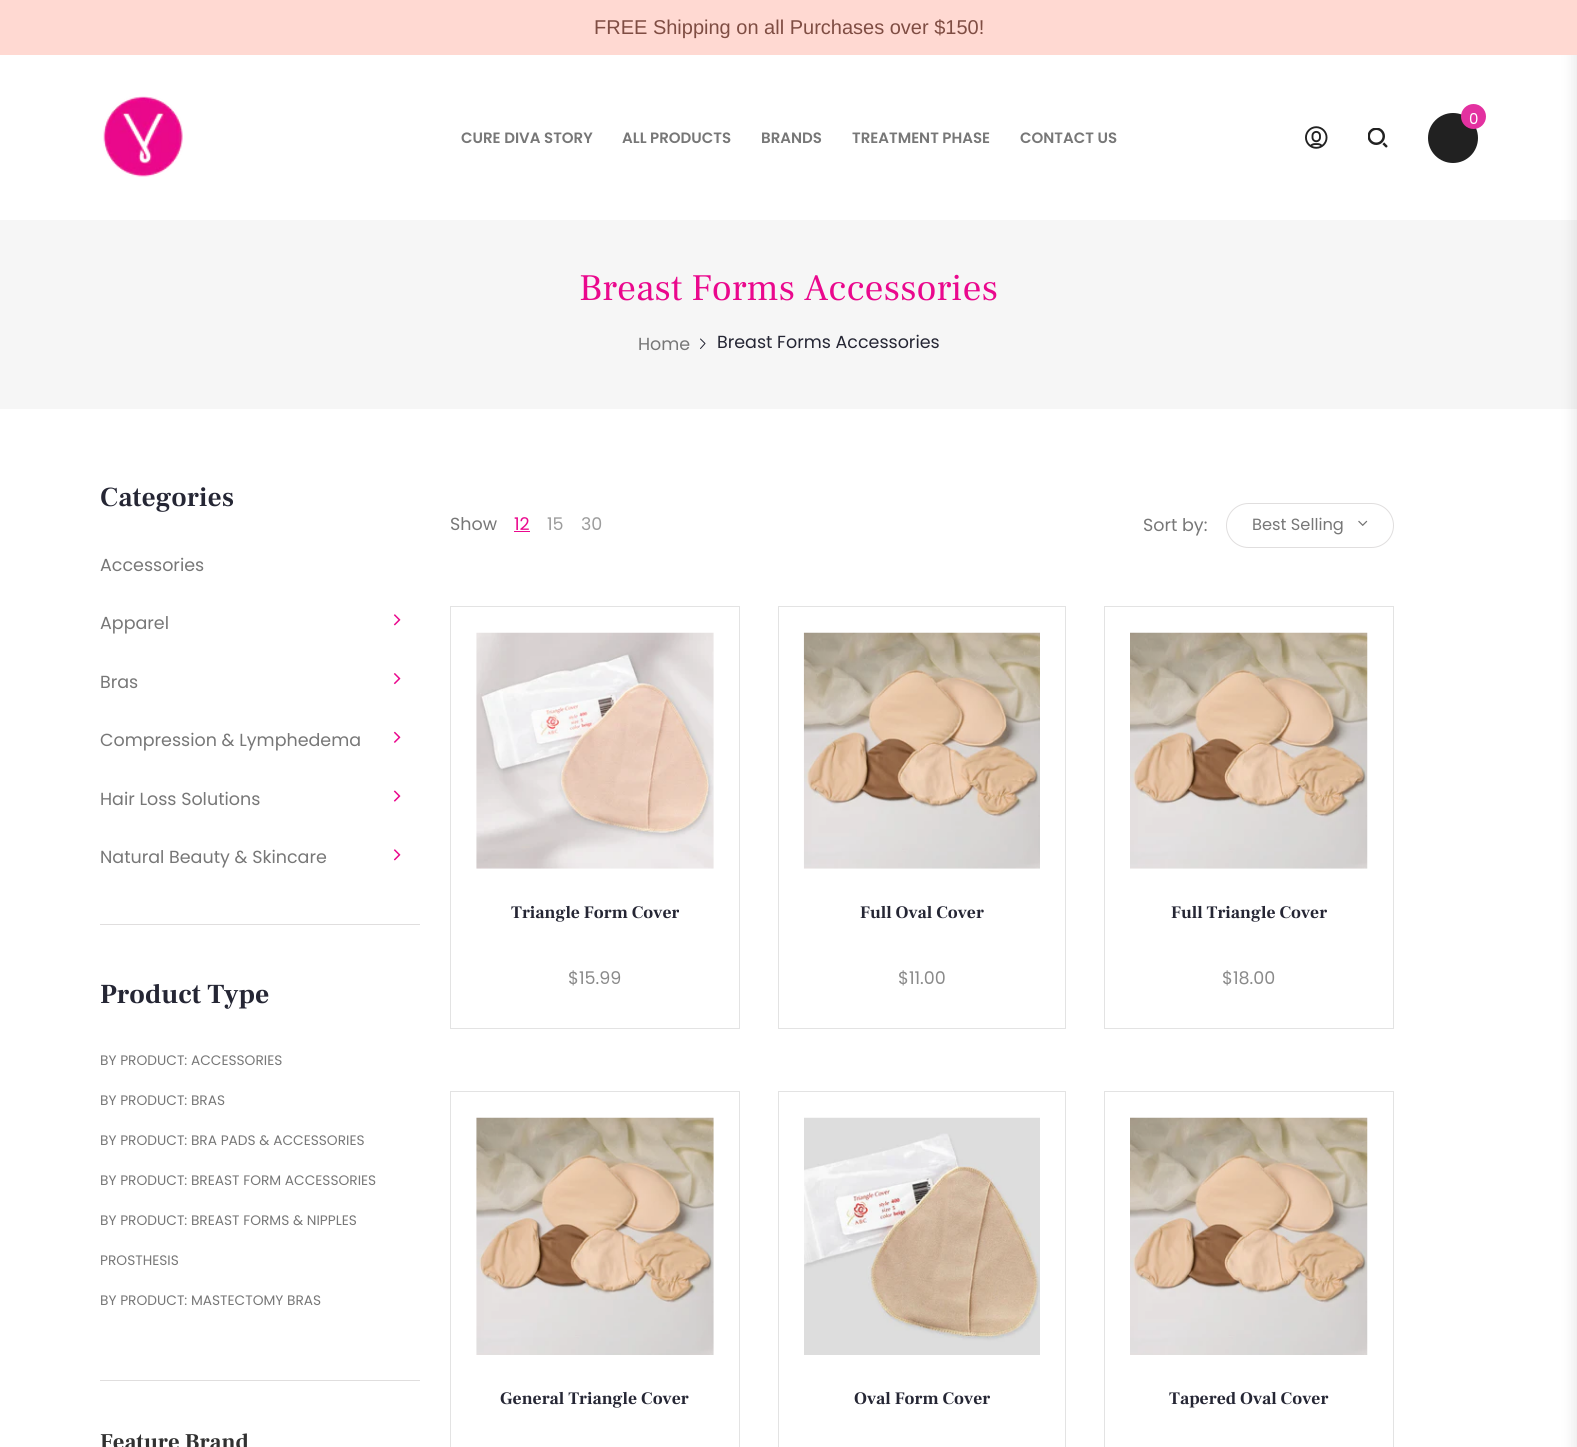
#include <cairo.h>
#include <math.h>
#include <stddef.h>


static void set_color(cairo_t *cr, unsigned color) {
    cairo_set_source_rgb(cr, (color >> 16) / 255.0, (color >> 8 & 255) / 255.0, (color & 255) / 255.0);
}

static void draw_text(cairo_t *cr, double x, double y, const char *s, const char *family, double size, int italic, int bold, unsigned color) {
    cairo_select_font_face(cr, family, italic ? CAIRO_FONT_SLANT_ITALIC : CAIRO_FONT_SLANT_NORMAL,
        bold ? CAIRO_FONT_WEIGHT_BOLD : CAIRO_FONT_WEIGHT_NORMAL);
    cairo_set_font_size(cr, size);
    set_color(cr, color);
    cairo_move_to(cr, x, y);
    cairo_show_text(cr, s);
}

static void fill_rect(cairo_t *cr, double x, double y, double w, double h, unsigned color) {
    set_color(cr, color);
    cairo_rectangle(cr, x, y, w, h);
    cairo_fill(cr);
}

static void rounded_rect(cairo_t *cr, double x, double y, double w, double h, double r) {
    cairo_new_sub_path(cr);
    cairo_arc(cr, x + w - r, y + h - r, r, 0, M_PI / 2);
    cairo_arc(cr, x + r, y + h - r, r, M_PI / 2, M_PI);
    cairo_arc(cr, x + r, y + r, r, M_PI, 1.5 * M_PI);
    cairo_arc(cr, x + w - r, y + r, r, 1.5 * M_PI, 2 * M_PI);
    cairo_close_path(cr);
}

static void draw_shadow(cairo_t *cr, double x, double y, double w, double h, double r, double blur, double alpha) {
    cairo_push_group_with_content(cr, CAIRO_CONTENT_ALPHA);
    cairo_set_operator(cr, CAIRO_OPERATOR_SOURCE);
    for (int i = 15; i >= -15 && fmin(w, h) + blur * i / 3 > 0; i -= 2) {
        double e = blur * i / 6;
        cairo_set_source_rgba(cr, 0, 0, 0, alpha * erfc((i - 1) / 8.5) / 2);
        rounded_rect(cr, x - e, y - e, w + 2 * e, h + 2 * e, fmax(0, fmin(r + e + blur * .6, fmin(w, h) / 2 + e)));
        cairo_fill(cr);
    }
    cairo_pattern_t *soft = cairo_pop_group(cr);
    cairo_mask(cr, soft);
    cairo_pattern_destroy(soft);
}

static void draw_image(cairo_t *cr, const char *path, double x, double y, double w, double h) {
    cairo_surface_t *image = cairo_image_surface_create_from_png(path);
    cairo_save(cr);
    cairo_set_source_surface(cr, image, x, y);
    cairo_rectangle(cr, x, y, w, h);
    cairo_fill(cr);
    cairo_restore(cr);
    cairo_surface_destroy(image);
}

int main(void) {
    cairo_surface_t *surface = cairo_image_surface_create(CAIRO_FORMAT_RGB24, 1577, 1447);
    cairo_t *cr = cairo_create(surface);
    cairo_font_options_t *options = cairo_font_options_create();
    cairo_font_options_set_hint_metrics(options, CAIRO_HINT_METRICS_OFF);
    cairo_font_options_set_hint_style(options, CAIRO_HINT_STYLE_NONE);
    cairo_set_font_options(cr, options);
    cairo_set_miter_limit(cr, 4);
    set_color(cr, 0xFFFFFF);
    cairo_paint(cr);
    fill_rect(cr, 0, 220, 1577, 189, 0xF6F6F6);
    set_color(cr, 0x000000);
    draw_shadow(cr, 1575, 0, 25, 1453, 0, 7.5, 0.1);
    fill_rect(cr, 0, 0, 1577, 55, 0xFFD9D2);
    draw_text(cr, 594, 34, "FREE Shipping on all Purchases over $150!", "Liberation Sans", 20, 0, 0, 0x7F4D43);
    draw_image(cr, "assets/img1.png", 103, 96, 80, 81);
    set_color(cr, 0x212121);
    cairo_arc(cr, 1453, 138, 25, 0, 2 * M_PI);
    cairo_fill(cr);
    set_color(cr, 0xE331A0);
    cairo_arc(cr, 1473.5, 116.5, 12.5, 0, 2 * M_PI);
    cairo_fill(cr);
    draw_text(cr, 1469, 124, "0", "Poppins", 15, 0, 0, 0xFFFFFF);
    draw_image(cr, "assets/img2.png", 1305, 126, 23, 23);
    draw_image(cr, "assets/img3.png", 1368, 128, 20, 20);
    draw_text(cr, 461, 143, "CURE DIVA STORY", "Poppins SemiBold", 15, 0, 0, 0x777777);
    draw_text(cr, 622, 143, "ALL PRODUCTS", "Poppins SemiBold", 15, 0, 0, 0x777777);
    draw_text(cr, 761, 143, "BRANDS", "Poppins SemiBold", 15, 0, 0, 0x777777);
    draw_text(cr, 852, 143, "TREATMENT PHASE", "Poppins SemiBold", 15, 0, 0, 0x777777);
    draw_text(cr, 1020, 143, "CONTACT US", "Poppins SemiBold", 15, 0, 0, 0x777777);
    draw_text(cr, 579, 300, "Breast Forms Accessories", "Frank Ruhl Libre", 37.5, 0, 0, 0xEA088D);
    draw_text(cr, 638, 350, "Home", "Poppins", 17.5, 0, 0, 0x777777);
    cairo_new_path(cr);
    cairo_move_to(cr, 700.5, 339);
    cairo_line_to(cr, 705, 343.5);
    cairo_line_to(cr, 700.5, 348.5);
    set_color(cr, 0x252634);
    cairo_set_line_width(cr, 1);
    cairo_set_line_cap(cr, CAIRO_LINE_CAP_ROUND);
    cairo_set_line_join(cr, CAIRO_LINE_JOIN_ROUND);
    cairo_stroke(cr);
    draw_text(cr, 717, 348, "Breast Forms Accessories", "Poppins", 17.5, 0, 0, 0x252634);
    draw_text(cr, 100, 506, "Categories", "Frank Ruhl Libre SemiBold", 27.5, 0, 0, 0x252634);
    fill_rect(cr, 100, 924, 320, 1, 0xE0DEDE);
    draw_text(cr, 100, 571, "Accessories", "Poppins", 17.5, 0, 0, 0x777777);
    draw_text(cr, 100, 629, "Apparel", "Poppins", 17.5, 0, 0, 0x777777);
    draw_image(cr, "assets/img4.png", 393, 614, 8, 12);
    draw_text(cr, 100, 688, "Bras", "Poppins", 17.5, 0, 0, 0x777777);
    draw_image(cr, "assets/img5.png", 393, 673, 8, 12);
    draw_text(cr, 100, 746, "Compression & Lymphedema", "Poppins", 17.5, 0, 0, 0x777777);
    draw_image(cr, "assets/img6.png", 393, 731, 8, 12);
    draw_text(cr, 100, 805, "Hair Loss Solutions", "Poppins", 17.5, 0, 0, 0x777777);
    draw_image(cr, "assets/img7.png", 393, 790, 8, 12);
    draw_text(cr, 100, 863, "Natural Beauty & Skincare", "Poppins", 17.5, 0, 0, 0x777777);
    draw_image(cr, "assets/img4.png", 393, 849, 8, 12);
    fill_rect(cr, 100, 1380, 320, 1, 0xE0DEDE);
    draw_text(cr, 100, 1003, "Product Type", "Frank Ruhl Libre", 27.5, 0, 1, 0x252634);
    draw_text(cr, 100, 1065, "BY PRODUCT: ACCESSORIES", "Poppins", 13.75, 0, 0, 0x777777);
    draw_text(cr, 100, 1105, "BY PRODUCT: BRAS", "Poppins", 13.75, 0, 0, 0x777777);
    draw_text(cr, 100, 1145, "BY PRODUCT: BRA PADS & ACCESSORIES", "Poppins", 13.75, 0, 0, 0x777777);
    draw_text(cr, 100, 1185, "BY PRODUCT: BREAST FORM ACCESSORIES", "Poppins", 13.75, 0, 0, 0x777777);
    draw_text(cr, 100, 1225, "BY PRODUCT: BREAST FORMS & NIPPLES", "Poppins", 13.75, 0, 0, 0x777777);
    draw_text(cr, 100, 1265, "PROSTHESIS", "Poppins", 13.75, 0, 0, 0x777777);
    draw_text(cr, 100, 1305, "BY PRODUCT: MASTECTOMY BRAS", "Poppins", 13.75, 0, 0, 0x777777);
    draw_text(cr, 100, 1449, "Feature Brand", "Frank Ruhl Libre", 22.5, 0, 1, 0x313131);
    draw_text(cr, 450, 530, "Show", "Poppins", 17.5, 0, 0, 0x777777);
    draw_text(cr, 514, 530, "12", "Poppins", 17.5, 0, 0, 0xEA088D);
    fill_rect(cr, 514, 531, 16, 1, 0xEA088D);
    draw_text(cr, 547, 530, "15", "Poppins", 17.5, 0, 0, 0x9D9D9D);
    draw_text(cr, 581, 530, "30", "Poppins", 17.5, 0, 0, 0x9D9D9D);
    draw_text(cr, 1143, 531, "Sort by:", "Poppins", 17.5, 0, 0, 0x777777);
    rounded_rect(cr, 1226.5, 503.5, 167, 44, 22);
    set_color(cr, 0xE0DEDE);
    cairo_set_line_cap(cr, CAIRO_LINE_CAP_BUTT);
    cairo_set_line_join(cr, CAIRO_LINE_JOIN_MITER);
    cairo_stroke(cr);
    draw_text(cr, 1252, 530, "Best Selling", "Poppins", 16.25, 0, 0, 0x777777);
    draw_image(cr, "assets/img8.png", 1358, 520, 10, 6);
    cairo_rectangle(cr, 450.5, 606.5, 289, 422);
    set_color(cr, 0xE3E3E3);
    cairo_stroke(cr);
    draw_image(cr, "assets/img9.png", 476, 632, 238, 237);
    draw_text(cr, 511, 918, "Triangle Form Cover", "Frank Ruhl Libre", 17.5, 0, 1, 0x252634);
    draw_text(cr, 568, 984, "$15.99", "Poppins", 17.5, 0, 0, 0x8A8A8A);
    cairo_rectangle(cr, 778.5, 606.5, 287, 422);
    set_color(cr, 0xE3E3E3);
    cairo_stroke(cr);
    draw_image(cr, "assets/img10.png", 803, 632, 237, 237);
    draw_text(cr, 860, 918, "Full Oval Cover", "Frank Ruhl Libre", 17.5, 0, 1, 0x252634);
    draw_text(cr, 898, 984, "$11.00", "Poppins", 17.5, 0, 0, 0x8A8A8A);
    cairo_rectangle(cr, 1104.5, 606.5, 289, 422);
    set_color(cr, 0xE3E3E3);
    cairo_stroke(cr);
    draw_image(cr, "assets/img11.png", 1130, 632, 238, 237);
    draw_text(cr, 1171, 918, "Full Triangle Cover", "Frank Ruhl Libre", 17.5, 0, 1, 0x252634);
    draw_text(cr, 1222, 984, "$18.00", "Poppins", 17.5, 0, 0, 0x8A8A8A);
    cairo_rectangle(cr, 450.5, 1091.5, 289, 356);
    set_color(cr, 0xE3E3E3);
    cairo_stroke(cr);
    draw_image(cr, "assets/img12.png", 476, 1117, 238, 238);
    draw_text(cr, 500, 1404, "General Triangle Cover", "Frank Ruhl Libre", 17.5, 0, 1, 0x252634);
    cairo_rectangle(cr, 778.5, 1091.5, 287, 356);
    set_color(cr, 0xE3E3E3);
    cairo_stroke(cr);
    draw_image(cr, "assets/img13.png", 804, 1117, 236, 238);
    draw_text(cr, 854, 1404, "Oval Form Cover", "Frank Ruhl Libre", 17.5, 0, 1, 0x252634);
    cairo_rectangle(cr, 1104.5, 1091.5, 289, 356);
    set_color(cr, 0xE3E3E3);
    cairo_stroke(cr);
    draw_image(cr, "assets/img14.png", 1130, 1117, 238, 238);
    draw_text(cr, 1169, 1404, "Tapered Oval Cover", "Frank Ruhl Libre", 17.5, 0, 1, 0x252634);
    cairo_surface_write_to_png(surface, "output.png");
    cairo_font_options_destroy(options);
    cairo_destroy(cr);
    cairo_surface_destroy(surface);
    return 0;
}
